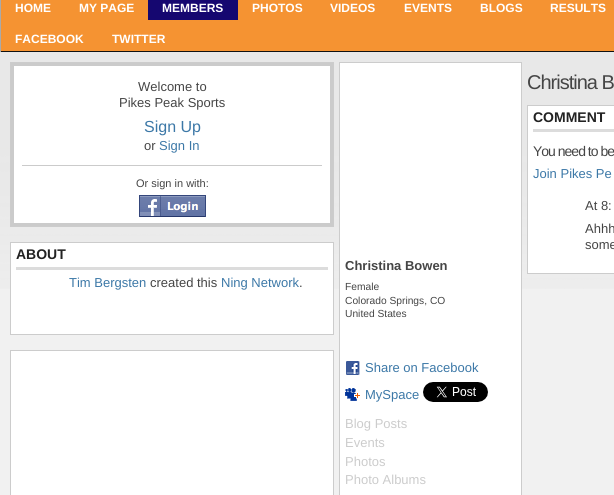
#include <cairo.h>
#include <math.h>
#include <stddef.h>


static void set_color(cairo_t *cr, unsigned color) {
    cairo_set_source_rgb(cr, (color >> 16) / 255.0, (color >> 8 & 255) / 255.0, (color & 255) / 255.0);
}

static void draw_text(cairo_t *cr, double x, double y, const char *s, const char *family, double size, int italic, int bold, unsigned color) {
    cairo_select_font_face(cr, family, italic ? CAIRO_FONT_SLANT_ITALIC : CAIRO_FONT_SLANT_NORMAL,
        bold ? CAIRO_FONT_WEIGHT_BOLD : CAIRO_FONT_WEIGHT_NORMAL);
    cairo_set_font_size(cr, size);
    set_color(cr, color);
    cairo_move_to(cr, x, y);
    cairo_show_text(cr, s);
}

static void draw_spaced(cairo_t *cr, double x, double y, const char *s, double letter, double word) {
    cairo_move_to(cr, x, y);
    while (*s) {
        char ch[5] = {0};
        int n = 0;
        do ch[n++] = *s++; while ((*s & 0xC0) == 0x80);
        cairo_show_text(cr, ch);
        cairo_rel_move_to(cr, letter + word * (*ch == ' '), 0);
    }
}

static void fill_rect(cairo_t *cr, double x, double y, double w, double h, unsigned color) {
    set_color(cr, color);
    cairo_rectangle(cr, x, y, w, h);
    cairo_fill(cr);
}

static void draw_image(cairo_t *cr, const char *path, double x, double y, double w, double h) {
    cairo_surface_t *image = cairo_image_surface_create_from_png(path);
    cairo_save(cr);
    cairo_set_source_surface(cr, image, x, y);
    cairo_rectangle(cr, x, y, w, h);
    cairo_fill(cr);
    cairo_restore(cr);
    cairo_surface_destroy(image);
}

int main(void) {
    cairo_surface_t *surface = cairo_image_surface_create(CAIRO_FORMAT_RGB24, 614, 495);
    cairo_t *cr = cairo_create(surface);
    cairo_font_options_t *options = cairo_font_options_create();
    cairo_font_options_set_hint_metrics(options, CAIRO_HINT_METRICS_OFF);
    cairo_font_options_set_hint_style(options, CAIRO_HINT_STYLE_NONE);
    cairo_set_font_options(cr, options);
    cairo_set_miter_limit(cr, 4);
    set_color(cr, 0xF59332);
    cairo_paint(cr);
    fill_rect(cr, 0, 51, 614, 1, 0x111111);
    fill_rect(cr, 0, 0, 1, 52, 0xAAAAAA);
    draw_text(cr, 15, 12, "HOME", "Liberation Sans", 12, 0, 1, 0xFFFFFF);
    draw_text(cr, 79, 12, "MY PAGE", "Liberation Sans", 12, 0, 1, 0xFFFFFF);
    fill_rect(cr, 148, 0, 90, 20, 0x150770);
    draw_text(cr, 162, 12, "MEMBERS", "Liberation Sans", 12, 0, 1, 0xFFFFFF);
    draw_text(cr, 252, 12, "PHOTOS", "Liberation Sans", 12, 0, 1, 0xFFFFFF);
    draw_text(cr, 330, 12, "VIDEOS", "Liberation Sans", 12, 0, 1, 0xFFFFFF);
    draw_text(cr, 404, 12, "EVENTS", "Liberation Sans", 12, 0, 1, 0xFFFFFF);
    draw_text(cr, 480, 12, "BLOGS", "Liberation Sans", 12, 0, 1, 0xFFFFFF);
    draw_text(cr, 550, 12, "RESULTS", "Liberation Sans", 12, 0, 1, 0xFFFFFF);
    draw_text(cr, 15, 43, "FACEBOOK", "Liberation Sans", 12, 0, 1, 0xFFFFFF);
    draw_text(cr, 112, 43, "TWITTER", "Liberation Sans", 12, 0, 1, 0xFFFFFF);
    fill_rect(cr, 0, 149, 614, 346, 0xF1F1F1);
    draw_image(cr, "assets/img1.png", 0, 52, 614, 237);
    fill_rect(cr, 14, 66, 316, 157, 0xFFFFFF);
    cairo_rectangle(cr, 10.5, 62.5, 323, 164);
    set_color(cr, 0xCCCCCC);
    cairo_set_line_width(cr, 1);
    cairo_stroke(cr);
    cairo_rectangle(cr, 12.5, 64.5, 319, 160);
    set_color(cr, 0xCBCBCB);
    cairo_set_line_width(cr, 3);
    cairo_stroke(cr);
    draw_text(cr, 138, 91, "Welcome to", "Liberation Sans", 13, 0, 0, 0x454545);
    draw_text(cr, 119, 107, "Pikes Peak Sports", "Liberation Sans", 13, 0, 0, 0x454545);
    draw_text(cr, 144, 132, "Sign Up", "Liberation Sans", 16, 0, 0, 0x3C78A7);
    draw_text(cr, 144, 150, "or", "Liberation Sans", 13, 0, 0, 0x454545);
    draw_text(cr, 159, 150, "Sign In", "Liberation Sans", 13, 0, 0, 0x3C78A7);
    fill_rect(cr, 22, 165, 300, 1, 0xCBCBCB);
    draw_text(cr, 136, 187, "Or sign in with:", "Liberation Sans", 11, 0, 0, 0x454545);
    draw_image(cr, "assets/img2.png", 139, 195, 67, 22);
    set_color(cr, 0xFFFFFF);
    cairo_rectangle(cr, 10.5, 242.5, 323, 92);
    cairo_fill_preserve(cr);
    set_color(cr, 0xCCCCCC);
    cairo_set_line_width(cr, 1);
    cairo_stroke(cr);
    fill_rect(cr, 16, 267, 312, 3, 0xDCDCDC);
    draw_text(cr, 16, 259, "ABOUT", "Liberation Sans", 14, 0, 1, 0x222222);
    draw_text(cr, 69, 287, "Tim Bergsten", "Liberation Sans", 13, 0, 0, 0x3C78A7);
    draw_text(cr, 150, 287, "created this", "Liberation Sans", 13, 0, 0, 0x454545);
    draw_text(cr, 221, 287, "Ning Network", "Liberation Sans", 13, 0, 0, 0x3C78A7);
    draw_text(cr, 299, 287, ".", "Liberation Sans", 13, 0, 0, 0x454545);
    set_color(cr, 0xFFFFFF);
    cairo_rectangle(cr, 10.5, 350.5, 323, 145);
    cairo_fill_preserve(cr);
    set_color(cr, 0xCCCCCC);
    cairo_stroke(cr);
    cairo_set_font_size(cr, 20);
    set_color(cr, 0x454545);
    draw_spaced(cr, 527, 89, "Christina B", -1, 0);
    set_color(cr, 0xFFFFFF);
    cairo_rectangle(cr, 527.5, 105.5, 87, 168);
    cairo_fill_preserve(cr);
    set_color(cr, 0xCCCCCC);
    cairo_stroke(cr);
    fill_rect(cr, 533, 129, 81, 3, 0xDCDCDC);
    draw_text(cr, 533, 122, "COMMENT", "Liberation Sans", 14, 0, 1, 0x222222);
    cairo_select_font_face(cr, "Liberation Sans", CAIRO_FONT_SLANT_NORMAL, CAIRO_FONT_WEIGHT_NORMAL);
    set_color(cr, 0x454545);
    draw_spaced(cr, 533, 156, "You need to be", -1, 0);
    draw_text(cr, 533, 178, "Join Pikes Pe", "Liberation Sans", 13, 0, 0, 0x3C78A7);
    draw_text(cr, 585, 210, "At 8:", "Liberation Sans", 13, 0, 0, 0x454545);
    draw_text(cr, 585, 233, "Ahhh", "Liberation Sans", 13, 0, 0, 0x454545);
    draw_text(cr, 585, 249, "some", "Liberation Sans", 13, 0, 0, 0x454545);
    set_color(cr, 0xFFFFFF);
    cairo_rectangle(cr, 339.5, 62.5, 182, 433);
    cairo_fill_preserve(cr);
    set_color(cr, 0xCCCCCC);
    cairo_stroke(cr);
    draw_text(cr, 345, 270, "Christina Bowen", "Liberation Sans", 13, 0, 1, 0x454545);
    draw_text(cr, 345, 290, "Female", "Liberation Sans", 10.25, 0, 0, 0x454545);
    draw_text(cr, 345, 304, "Colorado Springs, CO", "Liberation Sans", 10.25, 0, 0, 0x454545);
    draw_text(cr, 345, 317, "United States", "Liberation Sans", 10.25, 0, 0, 0x454545);
    draw_image(cr, "assets/img3.png", 346, 361, 14, 14);
    draw_text(cr, 365, 372, "Share on Facebook", "Liberation Sans", 13, 0, 0, 0x3C78A7);
    draw_image(cr, "assets/img4.png", 345, 388, 15, 13);
    draw_text(cr, 365, 399, "MySpace", "Liberation Sans", 13, 0, 0, 0x3C78A7);
    draw_image(cr, "assets/img5.png", 423, 382, 65, 20);
    draw_text(cr, 345, 428, "Blog Posts", "Liberation Sans", 13, 0, 0, 0xCCCCCC);
    draw_text(cr, 345, 447, "Events", "Liberation Sans", 13, 0, 0, 0xCCCCCC);
    draw_text(cr, 345, 466, "Photos", "Liberation Sans", 13, 0, 0, 0xCCCCCC);
    draw_text(cr, 345, 484, "Photo Albums", "Liberation Sans", 13, 0, 0, 0xCCCCCC);
    cairo_surface_write_to_png(surface, "output.png");
    cairo_font_options_destroy(options);
    cairo_destroy(cr);
    cairo_surface_destroy(surface);
    return 0;
}
